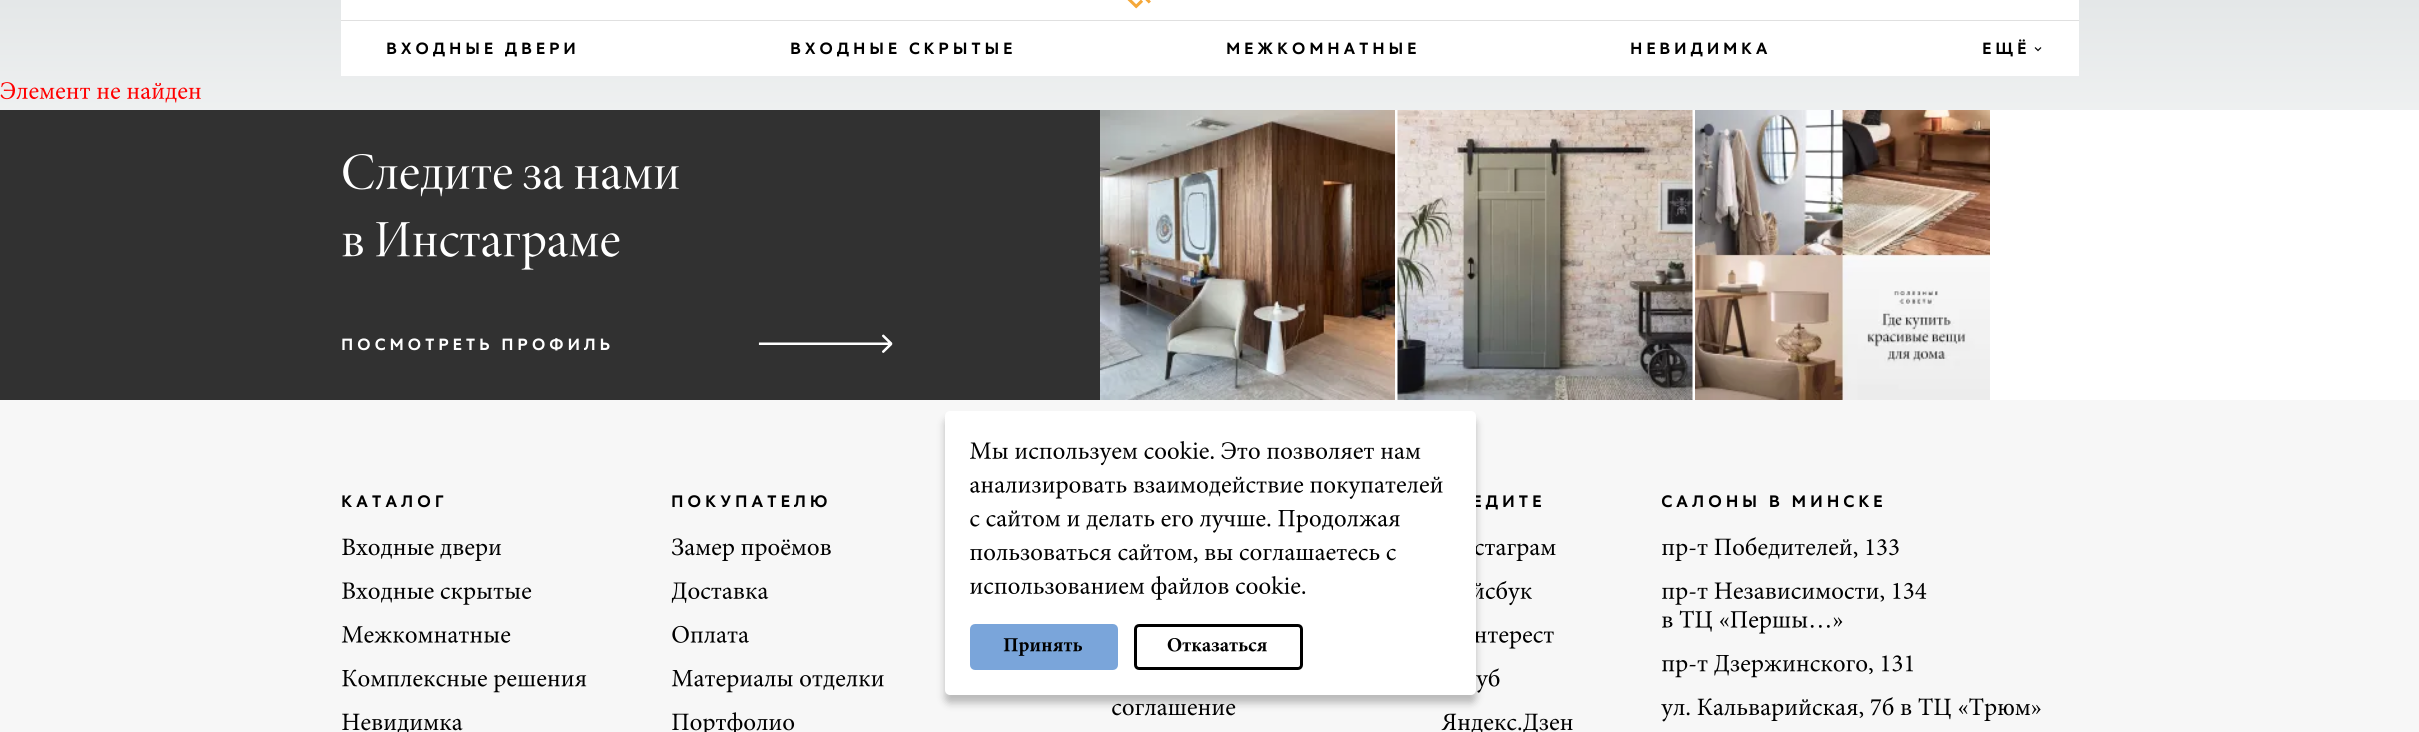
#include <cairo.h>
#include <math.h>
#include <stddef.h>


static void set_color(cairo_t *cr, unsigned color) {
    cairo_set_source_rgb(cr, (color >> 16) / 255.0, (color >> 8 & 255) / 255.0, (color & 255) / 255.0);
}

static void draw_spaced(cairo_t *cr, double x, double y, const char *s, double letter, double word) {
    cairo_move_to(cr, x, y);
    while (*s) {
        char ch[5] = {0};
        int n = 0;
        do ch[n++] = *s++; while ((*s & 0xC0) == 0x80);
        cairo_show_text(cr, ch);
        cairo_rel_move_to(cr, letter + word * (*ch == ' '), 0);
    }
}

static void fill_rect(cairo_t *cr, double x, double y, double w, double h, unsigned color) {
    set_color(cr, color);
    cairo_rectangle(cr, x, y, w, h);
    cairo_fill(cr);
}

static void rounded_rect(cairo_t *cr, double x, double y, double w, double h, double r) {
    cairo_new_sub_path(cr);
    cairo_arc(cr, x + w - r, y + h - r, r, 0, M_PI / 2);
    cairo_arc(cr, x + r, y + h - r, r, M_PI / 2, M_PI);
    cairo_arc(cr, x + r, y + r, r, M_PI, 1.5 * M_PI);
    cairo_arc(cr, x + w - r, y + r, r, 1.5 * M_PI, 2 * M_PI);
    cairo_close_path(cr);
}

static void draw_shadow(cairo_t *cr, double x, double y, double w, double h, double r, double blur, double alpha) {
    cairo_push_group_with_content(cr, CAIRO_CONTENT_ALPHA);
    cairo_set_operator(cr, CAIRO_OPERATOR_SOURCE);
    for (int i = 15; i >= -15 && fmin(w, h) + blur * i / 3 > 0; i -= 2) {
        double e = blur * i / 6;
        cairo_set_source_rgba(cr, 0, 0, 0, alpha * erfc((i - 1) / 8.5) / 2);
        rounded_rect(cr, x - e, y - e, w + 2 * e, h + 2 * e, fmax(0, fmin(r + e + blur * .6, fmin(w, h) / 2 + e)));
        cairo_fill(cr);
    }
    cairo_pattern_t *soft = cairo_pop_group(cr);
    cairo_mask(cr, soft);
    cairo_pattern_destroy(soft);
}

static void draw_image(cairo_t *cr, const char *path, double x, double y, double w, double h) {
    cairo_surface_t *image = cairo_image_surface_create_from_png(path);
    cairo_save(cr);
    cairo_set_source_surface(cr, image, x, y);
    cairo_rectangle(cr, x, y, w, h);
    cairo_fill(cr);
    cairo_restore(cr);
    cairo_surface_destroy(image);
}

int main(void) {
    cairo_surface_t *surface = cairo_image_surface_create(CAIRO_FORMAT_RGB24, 2419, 732);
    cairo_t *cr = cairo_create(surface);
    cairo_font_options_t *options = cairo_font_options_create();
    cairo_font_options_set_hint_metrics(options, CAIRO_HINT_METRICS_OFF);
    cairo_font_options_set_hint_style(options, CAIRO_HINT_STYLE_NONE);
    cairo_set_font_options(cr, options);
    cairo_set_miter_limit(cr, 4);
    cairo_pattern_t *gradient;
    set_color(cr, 0xFFFFFF);
    cairo_paint(cr);
    gradient = cairo_pattern_create_linear(1210, -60, 1210, 288);
    cairo_pattern_add_color_stop_rgba(gradient, 0, 0.871, 0.886, 0.89, 1);
    cairo_pattern_add_color_stop_rgba(gradient, 1, 1, 1, 1, 1);
    cairo_set_source(cr, gradient);
    cairo_pattern_destroy(gradient);
    cairo_rectangle(cr, 0, 0, 2419, 110);
    cairo_fill(cr);
    fill_rect(cr, 341, 0, 1738, 76, 0xFFFFFF);
    fill_rect(cr, 341, 20, 1738, 1, 0xE0E0E0);
    draw_image(cr, "assets/img1.png", 1127, 0, 24, 9);
    cairo_select_font_face(cr, "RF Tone", CAIRO_FONT_SLANT_NORMAL, CAIRO_FONT_WEIGHT_BOLD);
    cairo_set_font_size(cr, 16.25);
    set_color(cr, 0x000000);
    draw_spaced(cr, 386, 54, "ВХОДНЫЕ ДВЕРИ", 3.75, 0);
    draw_spaced(cr, 790, 54, "ВХОДНЫЕ СКРЫТЫЕ", 3.75, 0);
    draw_spaced(cr, 1226, 54, "МЕЖКОМНАТНЫЕ", 3.75, 0);
    draw_spaced(cr, 1630, 54, "НЕВИДИМКА", 3.75, 0);
    draw_spaced(cr, 1982, 54, "ЕЩЁ", 3.75, 0);
    cairo_new_path(cr);
    cairo_move_to(cr, 2035, 47.5);
    cairo_line_to(cr, 2038, 50.5);
    cairo_line_to(cr, 2041, 47.5);
    cairo_set_line_width(cr, 1.2);
    cairo_stroke(cr);
    draw_image(cr, "assets/img2.png", 0, 82, 201, 21);
    fill_rect(cr, 0, 110, 1100, 290, 0x313131);
    draw_image(cr, "assets/img3.png", 343, 154, 336, 43);
    draw_image(cr, "assets/img4.png", 342, 222, 278, 48);
    set_color(cr, 0xFFFFFF);
    draw_spaced(cr, 341, 350, "ПОСМОТРЕТЬ ПРОФИЛЬ", 3.75, 0);
    draw_image(cr, "assets/img5.png", 758, 334, 135, 19);
    draw_image(cr, "assets/img6.png", 1100, 110, 295, 290);
    draw_image(cr, "assets/img7.png", 1397, 110, 296, 290);
    draw_image(cr, "assets/img8.png", 1695, 110, 295, 290);
    fill_rect(cr, 0, 400, 2419, 332, 0xF7F7F7);
    cairo_set_font_size(cr, 16.6);
    set_color(cr, 0x000000);
    draw_spaced(cr, 341, 507, "КАТАЛОГ", 3.75, 0);
    draw_image(cr, "assets/img9.png", 342, 538, 160, 23);
    draw_image(cr, "assets/img10.png", 342, 582, 190, 23);
    draw_image(cr, "assets/img11.png", 341, 626, 170, 17);
    draw_image(cr, "assets/img12.png", 342, 669, 245, 24);
    draw_image(cr, "assets/img13.png", 342, 713, 121, 19);
    draw_spaced(cr, 671, 507, "ПОКУПАТЕЛЮ", 3.75, 0);
    draw_image(cr, "assets/img14.png", 671, 538, 160, 23);
    draw_image(cr, "assets/img15.png", 671, 582, 98, 21);
    draw_image(cr, "assets/img16.png", 672, 625, 77, 18);
    draw_image(cr, "assets/img17.png", 671, 670, 213, 23);
    draw_image(cr, "assets/img18.png", 672, 712, 123, 20);
    draw_spaced(cr, 1472, 507, "ЕДИТЕ", 3.75, 0);
    draw_image(cr, "assets/img19.png", 1476, 543, 80, 18);
    draw_image(cr, "assets/img20.png", 1476, 580, 56, 26);
    draw_image(cr, "assets/img21.png", 1476, 631, 78, 18);
    draw_image(cr, "assets/img22.png", 1476, 668, 24, 25);
    draw_image(cr, "assets/img23.png", 1441, 713, 132, 19);
    draw_spaced(cr, 1661, 507, "САЛОНЫ В МИНСКЕ", 3.75, 0);
    draw_image(cr, "assets/img24.png", 1662, 537, 237, 24);
    draw_image(cr, "assets/img25.png", 1662, 582, 265, 23);
    draw_image(cr, "assets/img26.png", 1662, 610, 181, 24);
    draw_image(cr, "assets/img27.png", 1662, 655, 251, 23);
    draw_image(cr, "assets/img28.png", 1661, 697, 380, 25);
    draw_image(cr, "assets/img29.png", 1112, 703, 124, 13);
    set_color(cr, 0x000000);
    draw_shadow(cr, 945, 419, 531, 284, 5, 4, 0.25);
    set_color(cr, 0xFFFFFF);
    rounded_rect(cr, 945, 411, 531, 284, 5);
    cairo_fill(cr);
    draw_image(cr, "assets/img30.png", 970, 441, 451, 25);
    draw_image(cr, "assets/img31.png", 970, 476, 473, 23);
    draw_image(cr, "assets/img32.png", 970, 510, 430, 23);
    draw_image(cr, "assets/img33.png", 970, 544, 426, 19);
    draw_image(cr, "assets/img34.png", 970, 576, 336, 24);
    set_color(cr, 0x7AA5DA);
    rounded_rect(cr, 971.5, 625.5, 145, 43, 3.5);
    cairo_fill_preserve(cr);
    cairo_set_line_width(cr, 3);
    cairo_stroke(cr);
    draw_image(cr, "assets/img35.png", 1003, 638, 79, 18);
    rounded_rect(cr, 1135.5, 625.5, 166, 43, 3.5);
    set_color(cr, 0x000000);
    cairo_stroke(cr);
    draw_image(cr, "assets/img36.png", 1167, 638, 100, 14);
    cairo_surface_write_to_png(surface, "output.png");
    cairo_font_options_destroy(options);
    cairo_destroy(cr);
    cairo_surface_destroy(surface);
    return 0;
}
